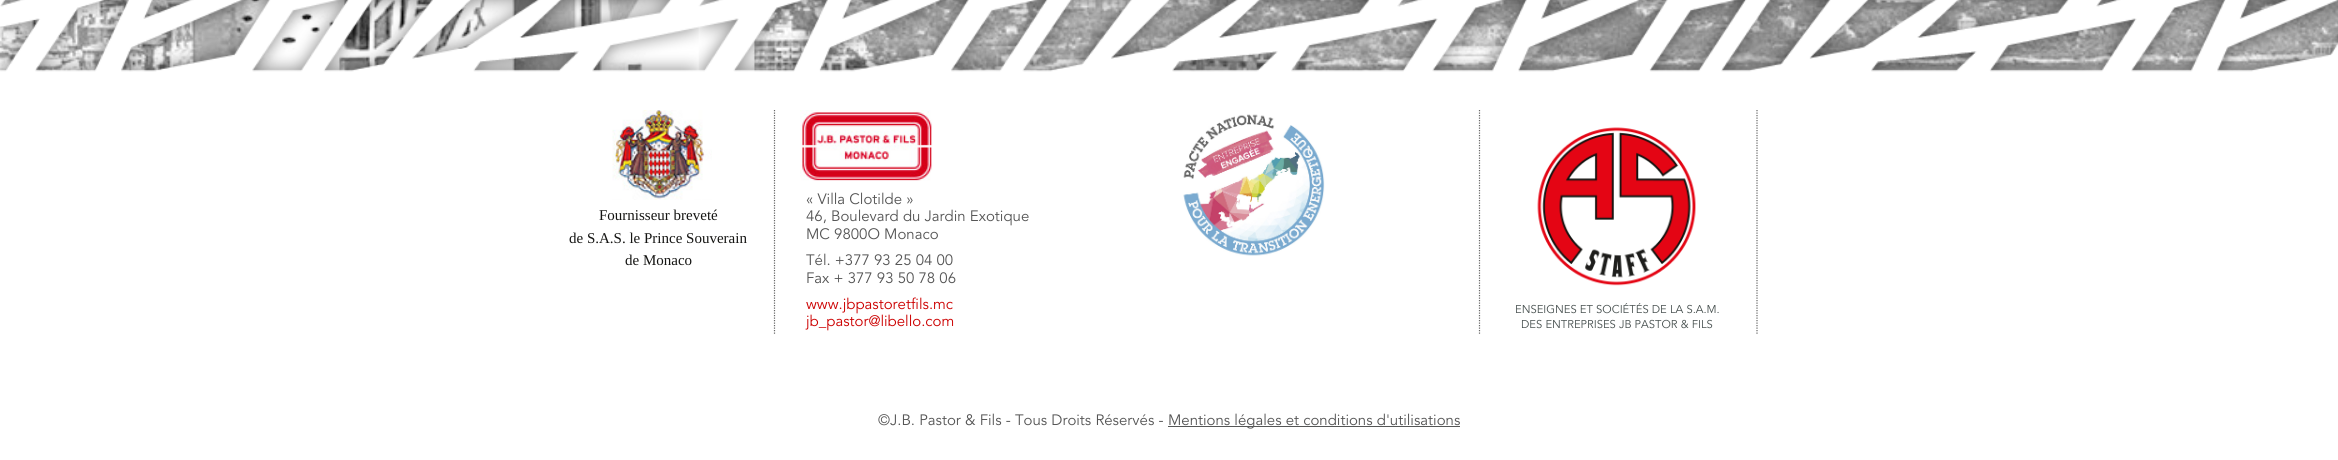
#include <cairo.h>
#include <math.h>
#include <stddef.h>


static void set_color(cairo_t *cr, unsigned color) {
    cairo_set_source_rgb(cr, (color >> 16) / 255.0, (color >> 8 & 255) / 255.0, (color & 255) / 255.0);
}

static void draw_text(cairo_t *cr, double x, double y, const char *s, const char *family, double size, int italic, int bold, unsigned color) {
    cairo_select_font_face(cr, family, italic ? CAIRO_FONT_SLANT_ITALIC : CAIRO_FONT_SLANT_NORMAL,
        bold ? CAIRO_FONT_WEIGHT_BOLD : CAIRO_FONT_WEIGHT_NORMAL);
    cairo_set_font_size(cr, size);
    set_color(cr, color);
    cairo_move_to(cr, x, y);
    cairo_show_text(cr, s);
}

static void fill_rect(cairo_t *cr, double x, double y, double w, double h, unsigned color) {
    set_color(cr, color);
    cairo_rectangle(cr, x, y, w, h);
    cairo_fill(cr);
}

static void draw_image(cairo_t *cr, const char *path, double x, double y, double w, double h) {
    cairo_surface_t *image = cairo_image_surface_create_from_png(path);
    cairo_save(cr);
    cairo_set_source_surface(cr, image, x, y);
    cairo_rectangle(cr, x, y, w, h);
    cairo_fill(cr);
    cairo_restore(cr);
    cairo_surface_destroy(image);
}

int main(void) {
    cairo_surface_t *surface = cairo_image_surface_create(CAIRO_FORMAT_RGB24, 2338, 460);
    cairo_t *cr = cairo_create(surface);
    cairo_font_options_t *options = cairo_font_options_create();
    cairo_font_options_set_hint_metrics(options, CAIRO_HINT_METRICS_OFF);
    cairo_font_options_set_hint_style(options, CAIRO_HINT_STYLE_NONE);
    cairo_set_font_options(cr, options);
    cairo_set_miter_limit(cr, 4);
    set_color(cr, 0xFFFFFF);
    cairo_paint(cr);
    draw_image(cr, "assets/img1.png", 0, 0, 2338, 72);
    draw_image(cr, "assets/img2.png", 0, 0, 2338, 460);
    draw_image(cr, "assets/img3.png", 612, 110, 100, 90);
    draw_text(cr, 599, 220, "Fournisseur breveté", "Liberation Serif", 15, 0, 0, 0x141412);
    draw_text(cr, 569, 243, "de S.A.S. le Prince Souverain", "Liberation Serif", 15, 0, 0, 0x141412);
    draw_text(cr, 625, 265, "de Monaco", "Liberation Serif", 15, 0, 0, 0x141412);
    cairo_new_path(cr);
    cairo_move_to(cr, 774.5, 110);
    cairo_line_to(cr, 774.5, 335);
    set_color(cr, 0x666666);
    cairo_set_line_width(cr, 1.2);
    cairo_set_dash(cr, (double[]){1.25, 1.25}, 2, 0);
    cairo_stroke(cr);
    draw_image(cr, "assets/img4.png", 800, 110, 133, 71);
    draw_text(cr, 806, 204, "« Villa Clotilde »", "Avenir", 15, 0, 0, 0x555555);
    draw_text(cr, 806, 221, "46, Boulevard du Jardin Exotique", "Avenir", 15, 0, 0, 0x555555);
    draw_text(cr, 806, 239, "MC 9800O Monaco", "Avenir", 15, 0, 0, 0x555555);
    draw_text(cr, 806, 265, "Tél. +377 93 25 04 00", "Avenir", 15, 0, 0, 0x555555);
    draw_text(cr, 806, 283, "Fax + 377 93 50 78 06", "Avenir", 15, 0, 0, 0x555555);
    draw_text(cr, 806, 309, "www.jbpastoretfils.mc", "Avenir", 15, 0, 0, 0xCC0000);
    draw_text(cr, 806, 326, "jb_pastor@libello.com", "Avenir", 15, 0, 0, 0xCC0000);
    draw_image(cr, "assets/img5.png", 1183, 114, 142, 142);
    cairo_new_path(cr);
    cairo_move_to(cr, 1479.5, 110);
    cairo_line_to(cr, 1479.5, 335);
    set_color(cr, 0x666666);
    cairo_stroke(cr);
    cairo_new_path(cr);
    cairo_move_to(cr, 1757, 110);
    cairo_line_to(cr, 1757, 335);
    cairo_stroke(cr);
    draw_image(cr, "assets/img6.png", 1537, 127, 159, 159);
    draw_text(cr, 1515, 313, "ENSEIGNES ET SOCIÉTÉS DE LA S.A.M.", "Avenir", 11.25, 0, 0, 0x464F4E);
    draw_text(cr, 1521, 328, "DES ENTREPRISES JB PASTOR & FILS", "Avenir", 11.25, 0, 0, 0x464F4E);
    draw_text(cr, 878, 425, "©J.B. Pastor & Fils - Tous Droits Réservés -", "Avenir", 15, 0, 0, 0x555555);
    fill_rect(cr, 1168, 426, 292, 1, 0x555656);
    draw_text(cr, 1168, 425, "Mentions légales et conditions d'utilisations", "Avenir", 15, 0, 0, 0x555555);
    cairo_surface_write_to_png(surface, "output.png");
    cairo_font_options_destroy(options);
    cairo_destroy(cr);
    cairo_surface_destroy(surface);
    return 0;
}
